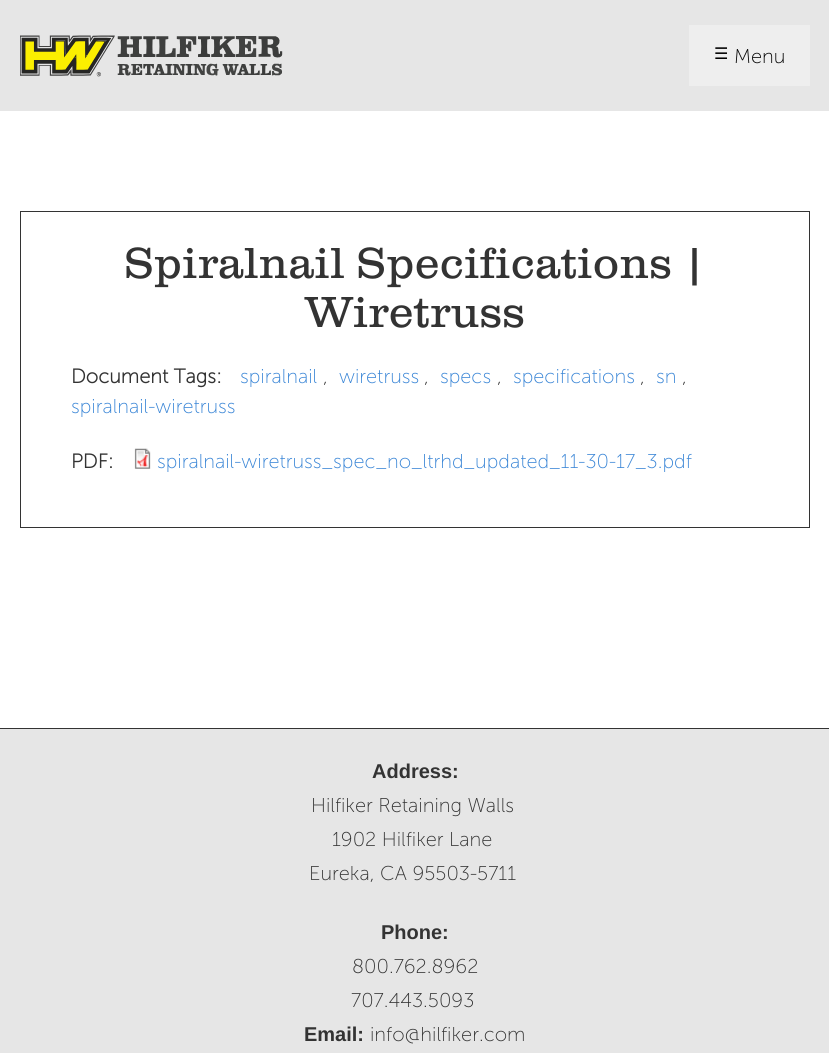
#include <cairo.h>
#include <math.h>
#include <stddef.h>


static void set_color(cairo_t *cr, unsigned color) {
    cairo_set_source_rgb(cr, (color >> 16) / 255.0, (color >> 8 & 255) / 255.0, (color & 255) / 255.0);
}

static void draw_text(cairo_t *cr, double x, double y, const char *s, const char *family, double size, int italic, int bold, unsigned color) {
    cairo_select_font_face(cr, family, italic ? CAIRO_FONT_SLANT_ITALIC : CAIRO_FONT_SLANT_NORMAL,
        bold ? CAIRO_FONT_WEIGHT_BOLD : CAIRO_FONT_WEIGHT_NORMAL);
    cairo_set_font_size(cr, size);
    set_color(cr, color);
    cairo_move_to(cr, x, y);
    cairo_show_text(cr, s);
}

static void fill_rect(cairo_t *cr, double x, double y, double w, double h, unsigned color) {
    set_color(cr, color);
    cairo_rectangle(cr, x, y, w, h);
    cairo_fill(cr);
}

static void draw_image(cairo_t *cr, const char *path, double x, double y, double w, double h) {
    cairo_surface_t *image = cairo_image_surface_create_from_png(path);
    cairo_save(cr);
    cairo_set_source_surface(cr, image, x, y);
    cairo_rectangle(cr, x, y, w, h);
    cairo_fill(cr);
    cairo_restore(cr);
    cairo_surface_destroy(image);
}

int main(void) {
    cairo_surface_t *surface = cairo_image_surface_create(CAIRO_FORMAT_RGB24, 829, 1053);
    cairo_t *cr = cairo_create(surface);
    cairo_font_options_t *options = cairo_font_options_create();
    cairo_font_options_set_hint_metrics(options, CAIRO_HINT_METRICS_OFF);
    cairo_font_options_set_hint_style(options, CAIRO_HINT_STYLE_NONE);
    cairo_set_font_options(cr, options);
    cairo_set_miter_limit(cr, 4);
    set_color(cr, 0xFFFFFF);
    cairo_paint(cr);
    fill_rect(cr, 0, 0, 829, 111, 0xE6E6E6);
    draw_image(cr, "assets/img1.png", 20, 35, 263, 42);
    fill_rect(cr, 689, 25, 121, 61, 0xEEEEEE);
    draw_text(cr, 714, 59, "☰", "DejaVu Sans", 16, 0, 0, 0x000000);
    draw_text(cr, 734, 63, "Menu", "Museo Sans ExtraLight", 20, 0, 0, 0x000000);
    cairo_rectangle(cr, 20.5, 211.5, 789, 316);
    set_color(cr, 0x333333);
    cairo_set_line_width(cr, 1);
    cairo_stroke(cr);
    draw_text(cr, 124, 278, "Spiralnail Specifications |", "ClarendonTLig", 45, 0, 0, 0x333333);
    draw_text(cr, 305, 327, "Wiretruss", "ClarendonTLig", 45, 0, 0, 0x333333);
    draw_text(cr, 240, 383, "spiralnail", "Museo Sans ExtraLight", 20, 0, 0, 0x3985D6);
    draw_text(cr, 323, 383, ",", "Museo Sans ExtraLight", 20, 0, 0, 0x333333);
    draw_text(cr, 339, 383, "wiretruss", "Museo Sans ExtraLight", 20, 0, 0, 0x3985D6);
    draw_text(cr, 424, 383, ",", "Museo Sans ExtraLight", 20, 0, 0, 0x333333);
    draw_text(cr, 440, 383, "specs", "Museo Sans ExtraLight", 20, 0, 0, 0x3985D6);
    draw_text(cr, 497, 383, ",", "Museo Sans ExtraLight", 20, 0, 0, 0x333333);
    draw_text(cr, 513, 383, "specifications", "Museo Sans ExtraLight", 20, 0, 0, 0x3985D6);
    draw_text(cr, 640, 383, ",", "Museo Sans ExtraLight", 20, 0, 0, 0x333333);
    draw_text(cr, 656, 383, "sn", "Museo Sans ExtraLight", 20, 0, 0, 0x3985D6);
    draw_text(cr, 682, 383, ",", "Museo Sans ExtraLight", 20, 0, 0, 0x333333);
    draw_text(cr, 71, 413, "spiralnail-wiretruss", "Museo Sans ExtraLight", 20, 0, 0, 0x3985D6);
    draw_text(cr, 71, 383, "Document Tags:", "Museo Sans", 20, 0, 1, 0x333333);
    draw_text(cr, 71, 468, "PDF:", "Museo Sans", 20, 0, 1, 0x333333);
    draw_image(cr, "assets/img2.png", 134, 448, 17, 21);
    draw_text(cr, 157, 468, "spiralnail-wiretruss_spec_no_ltrhd_updated_11-30-17_3.pdf", "Museo Sans ExtraLight", 20, 0, 0, 0x3985D6);
    fill_rect(cr, 0, 729, 829, 324, 0xE6E6E6);
    fill_rect(cr, 0, 728, 829, 1, 0x333333);
    draw_text(cr, 372, 778, "Address:", "Liberation Sans", 20, 0, 1, 0x333333);
    draw_text(cr, 311, 812, "Hilfiker Retaining Walls", "Museo Sans ExtraLight", 20, 0, 0, 0x333333);
    draw_text(cr, 332, 846, "1902 Hilfiker Lane", "Museo Sans ExtraLight", 20, 0, 0, 0x333333);
    draw_text(cr, 309, 880, "Eureka, CA 95503-5711", "Museo Sans ExtraLight", 20, 0, 0, 0x333333);
    draw_text(cr, 381, 939, "Phone:", "Liberation Sans", 20, 0, 1, 0x333333);
    draw_text(cr, 352, 973, "800.762.8962", "Museo Sans ExtraLight", 20, 0, 0, 0x333333);
    draw_text(cr, 351, 1007, "707.443.5093", "Museo Sans ExtraLight", 20, 0, 0, 0x333333);
    draw_text(cr, 304, 1041, "Email:", "Liberation Sans", 20, 0, 1, 0x333333);
    draw_text(cr, 370, 1041, "info@hilfiker.com", "Museo Sans ExtraLight", 20, 0, 0, 0x333333);
    cairo_surface_write_to_png(surface, "output.png");
    cairo_font_options_destroy(options);
    cairo_destroy(cr);
    cairo_surface_destroy(surface);
    return 0;
}
